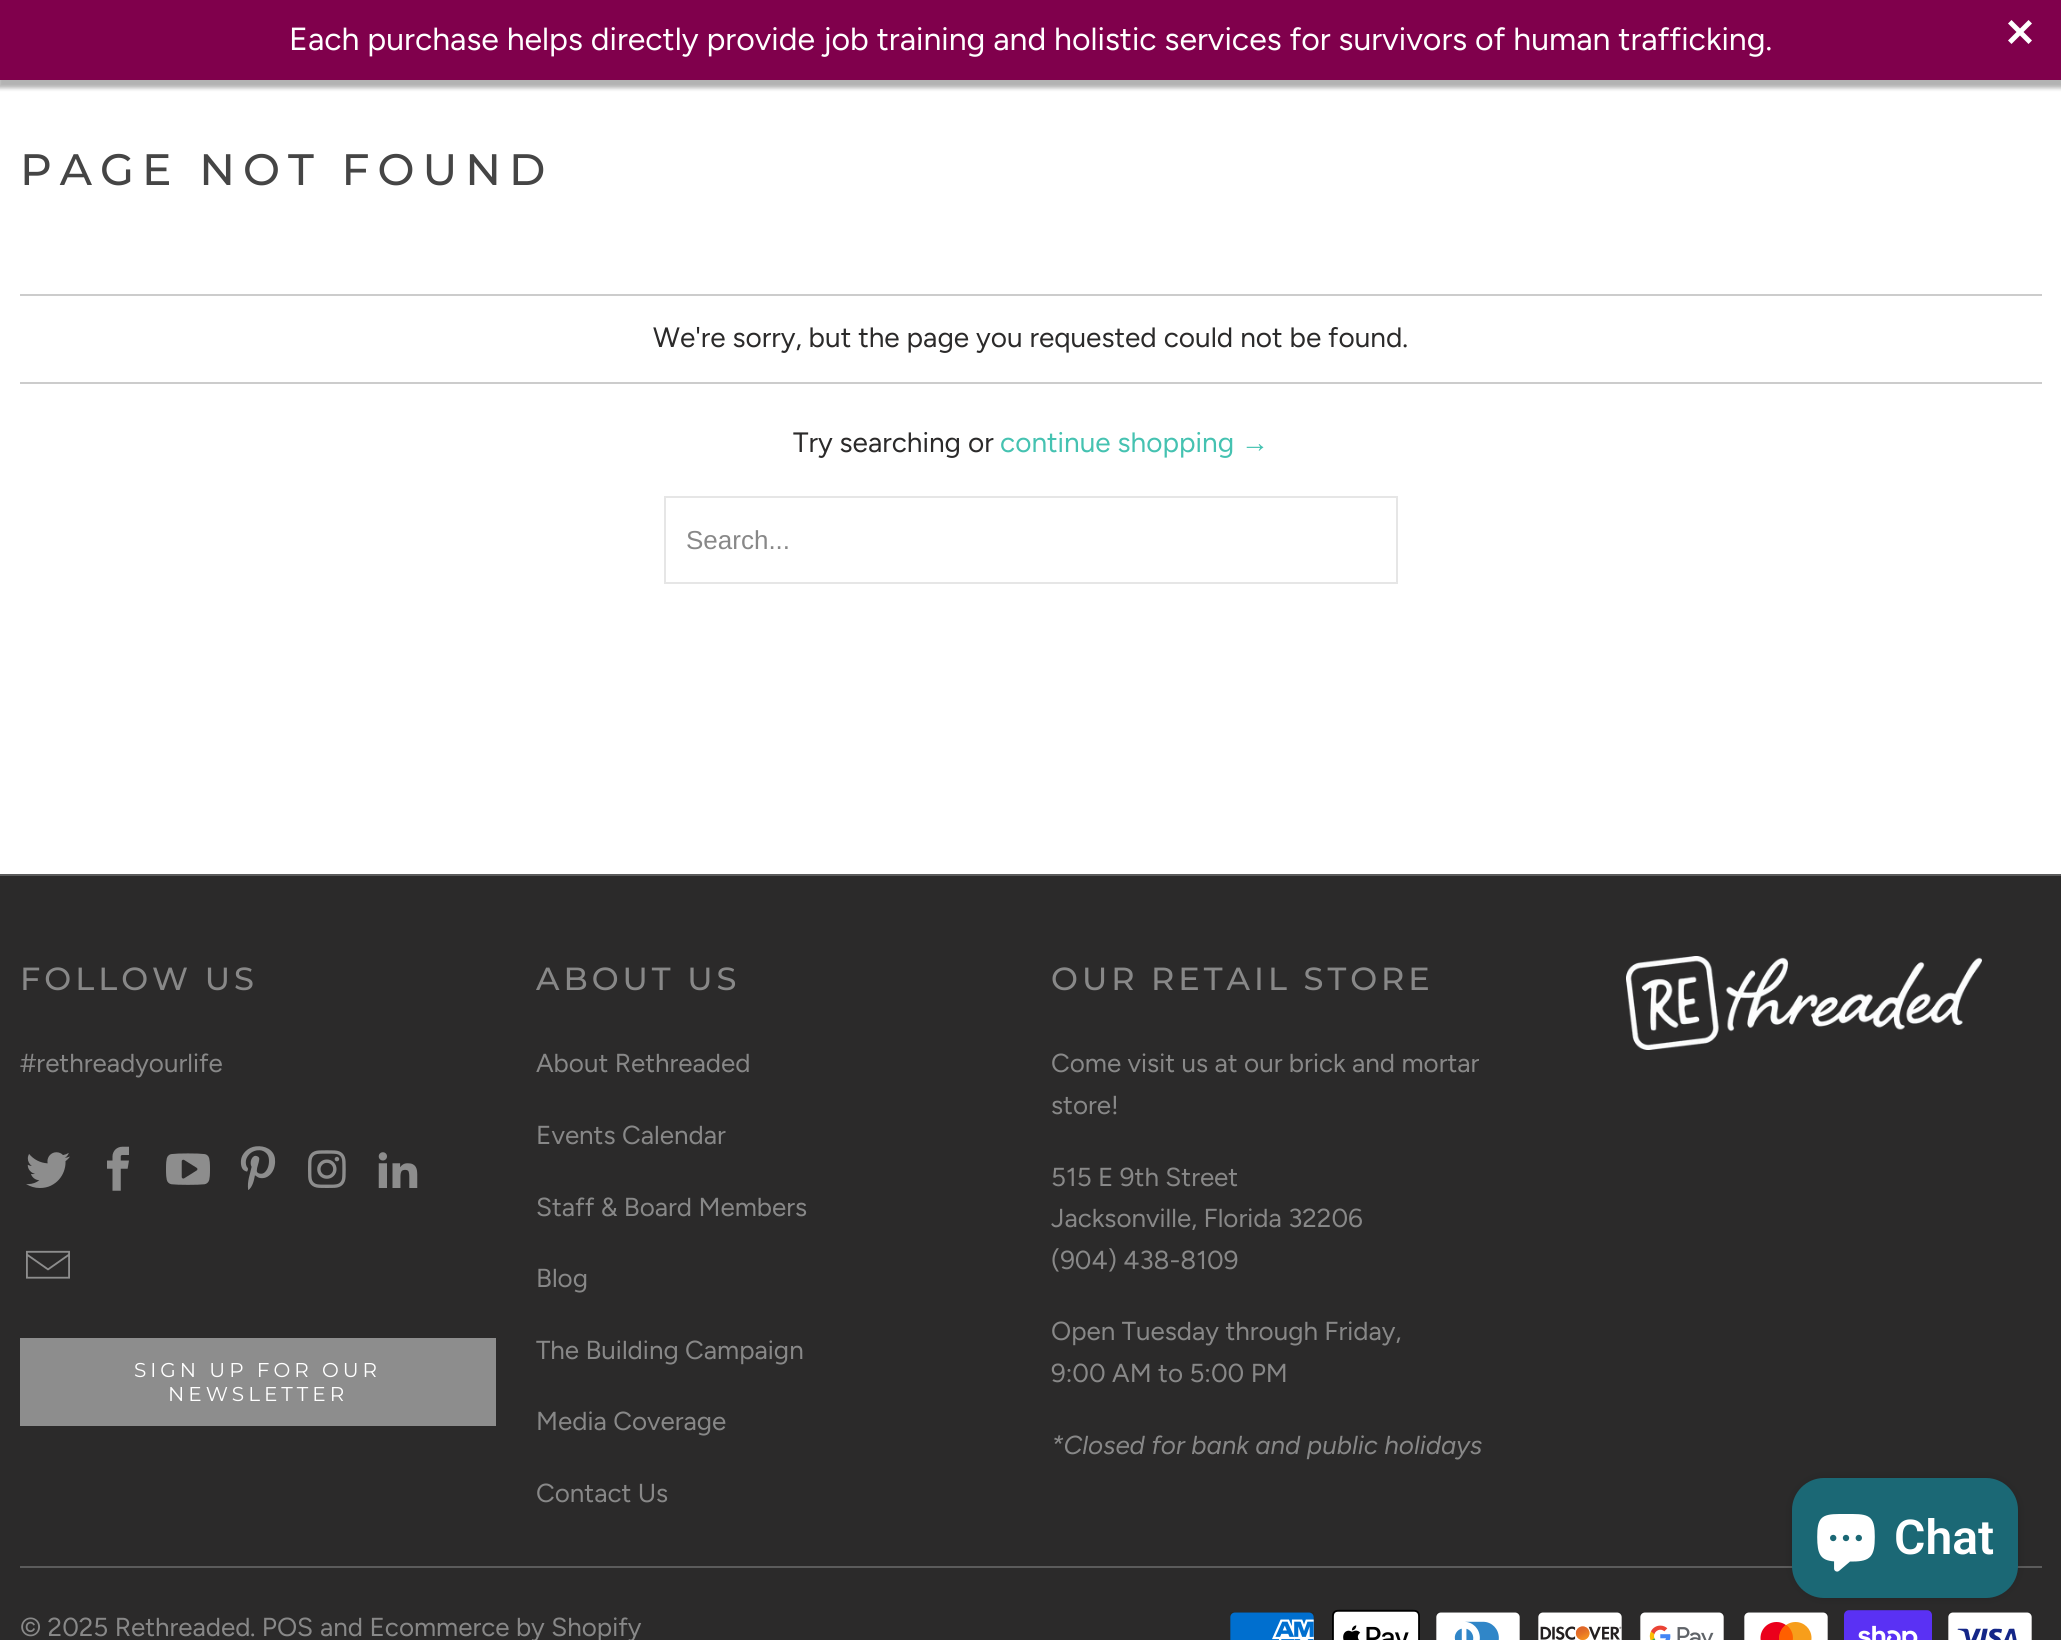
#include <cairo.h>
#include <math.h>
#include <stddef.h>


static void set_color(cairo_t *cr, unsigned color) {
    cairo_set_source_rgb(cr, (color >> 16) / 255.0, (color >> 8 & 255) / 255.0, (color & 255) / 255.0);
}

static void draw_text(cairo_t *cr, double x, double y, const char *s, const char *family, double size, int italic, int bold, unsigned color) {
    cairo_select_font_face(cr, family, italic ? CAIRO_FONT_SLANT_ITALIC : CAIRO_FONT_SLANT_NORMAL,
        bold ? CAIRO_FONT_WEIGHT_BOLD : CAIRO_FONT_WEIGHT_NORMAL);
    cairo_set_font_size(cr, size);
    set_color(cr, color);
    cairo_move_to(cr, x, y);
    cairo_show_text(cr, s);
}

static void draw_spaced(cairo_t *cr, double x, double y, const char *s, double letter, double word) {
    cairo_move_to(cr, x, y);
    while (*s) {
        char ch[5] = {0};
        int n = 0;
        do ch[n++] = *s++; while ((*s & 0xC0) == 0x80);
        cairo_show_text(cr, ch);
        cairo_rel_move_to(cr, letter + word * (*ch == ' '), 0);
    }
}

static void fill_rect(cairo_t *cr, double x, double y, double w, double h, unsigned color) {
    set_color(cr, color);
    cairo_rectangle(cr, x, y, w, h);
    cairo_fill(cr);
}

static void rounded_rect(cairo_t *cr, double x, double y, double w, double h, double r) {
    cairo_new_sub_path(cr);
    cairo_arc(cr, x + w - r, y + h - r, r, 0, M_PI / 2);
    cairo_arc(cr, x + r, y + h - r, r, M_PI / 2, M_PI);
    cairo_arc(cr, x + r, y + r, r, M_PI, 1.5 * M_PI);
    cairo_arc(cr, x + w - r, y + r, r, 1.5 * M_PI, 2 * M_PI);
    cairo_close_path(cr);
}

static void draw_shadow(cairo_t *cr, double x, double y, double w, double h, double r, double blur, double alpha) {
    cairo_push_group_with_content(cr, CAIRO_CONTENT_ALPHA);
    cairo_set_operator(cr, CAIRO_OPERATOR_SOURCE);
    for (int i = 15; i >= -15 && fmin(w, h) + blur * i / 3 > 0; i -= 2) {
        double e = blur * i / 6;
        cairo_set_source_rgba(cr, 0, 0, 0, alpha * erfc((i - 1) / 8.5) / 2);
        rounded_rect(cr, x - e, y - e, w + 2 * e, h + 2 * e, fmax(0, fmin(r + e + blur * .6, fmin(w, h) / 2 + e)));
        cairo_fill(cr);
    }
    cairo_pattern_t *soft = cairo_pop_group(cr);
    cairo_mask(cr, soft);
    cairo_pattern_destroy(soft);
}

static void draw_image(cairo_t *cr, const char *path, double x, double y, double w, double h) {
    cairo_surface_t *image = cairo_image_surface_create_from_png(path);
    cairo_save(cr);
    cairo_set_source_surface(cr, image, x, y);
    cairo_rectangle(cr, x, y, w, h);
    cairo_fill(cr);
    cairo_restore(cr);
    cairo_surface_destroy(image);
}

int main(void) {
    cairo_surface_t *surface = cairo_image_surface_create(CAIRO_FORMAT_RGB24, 2061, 1640);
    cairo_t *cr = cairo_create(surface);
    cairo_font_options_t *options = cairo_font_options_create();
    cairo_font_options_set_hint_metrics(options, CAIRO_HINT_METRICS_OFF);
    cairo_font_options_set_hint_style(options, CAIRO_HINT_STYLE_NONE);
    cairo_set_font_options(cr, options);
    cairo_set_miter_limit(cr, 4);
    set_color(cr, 0xFFFFFF);
    cairo_paint(cr);
    set_color(cr, 0x000000);
    draw_shadow(cr, -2, 4, 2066, 84, 0, 2, 0.3);
    fill_rect(cr, 0, 0, 2061, 80, 0x80004C);
    draw_text(cr, 289, 50, "Each purchase helps directly provide job training and holistic services for survivors of human trafficking.", "Figtree", 32, 0, 0, 0xFFFFFF);
    draw_image(cr, "assets/img1.png", 2008, 20, 24, 24);
    cairo_select_font_face(cr, "Montserrat Medium", CAIRO_FONT_SLANT_NORMAL, CAIRO_FONT_WEIGHT_NORMAL);
    cairo_set_font_size(cr, 44);
    set_color(cr, 0x454545);
    draw_spaced(cr, 20, 185, "PAGE NOT FOUND", 8, 0);
    fill_rect(cr, 20, 294, 2022, 2, 0xCCCCCC);
    fill_rect(cr, 20, 382, 2022, 2, 0xCCCCCC);
    draw_text(cr, 653, 347, "We're sorry, but the page you requested could not be found.", "Figtree", 28, 0, 0, 0x2B2A2A);
    draw_text(cr, 793, 452, "Try searching or", "Figtree", 28, 0, 0, 0x2B2A2A);
    draw_text(cr, 1000, 452, "continue shopping", "Figtree", 28, 0, 0, 0x45C2B1);
    draw_text(cr, 1241, 452, "→", "Liberation Sans", 28, 0, 0, 0x45C2B1);
    cairo_rectangle(cr, 665, 497, 732, 86);
    set_color(cr, 0xE6E6E6);
    cairo_stroke(cr);
    draw_text(cr, 686, 549, "Search...", "Liberation Sans", 26, 0, 0, 0x888888);
    fill_rect(cr, 0, 876, 2061, 764, 0x2B2A2A);
    fill_rect(cr, 0, 874, 2061, 2, 0x5B5B5B);
    cairo_select_font_face(cr, "Montserrat Medium", CAIRO_FONT_SLANT_NORMAL, CAIRO_FONT_WEIGHT_NORMAL);
    cairo_set_font_size(cr, 32);
    set_color(cr, 0x888888);
    draw_spaced(cr, 20, 990, "FOLLOW US", 4, 0);
    draw_text(cr, 20, 1072, "#rethreadyourlife", "Figtree", 26, 0, 0, 0x888888);
    draw_image(cr, "assets/img2.png", 26, 1152, 44, 36);
    draw_image(cr, "assets/img3.png", 107, 1146, 22, 45);
    draw_image(cr, "assets/img4.png", 166, 1153, 44, 32);
    draw_image(cr, "assets/img5.png", 240, 1146, 36, 44);
    draw_image(cr, "assets/img6.png", 308, 1150, 38, 38);
    draw_image(cr, "assets/img7.png", 378, 1152, 40, 36);
    draw_image(cr, "assets/img8.png", 26, 1250, 44, 29);
    fill_rect(cr, 20, 1338, 476, 88, 0x8D8D8D);
    cairo_select_font_face(cr, "Montserrat", CAIRO_FONT_SLANT_NORMAL, CAIRO_FONT_WEIGHT_NORMAL);
    cairo_set_font_size(cr, 20);
    set_color(cr, 0xFFFFFF);
    draw_spaced(cr, 134, 1377, "SIGN UP FOR OUR", 4, 0);
    draw_spaced(cr, 168, 1401, "NEWSLETTER", 4, 0);
    cairo_select_font_face(cr, "Montserrat Medium", CAIRO_FONT_SLANT_NORMAL, CAIRO_FONT_WEIGHT_NORMAL);
    cairo_set_font_size(cr, 32);
    set_color(cr, 0x888888);
    draw_spaced(cr, 536, 990, "ABOUT US", 4, 0);
    draw_text(cr, 536, 1072, "About Rethreaded", "Figtree", 26, 0, 0, 0x888888);
    draw_text(cr, 536, 1144, "Events Calendar", "Figtree", 26, 0, 0, 0x888888);
    draw_text(cr, 536, 1216, "Staff & Board Members", "Figtree", 26, 0, 0, 0x888888);
    draw_text(cr, 536, 1287, "Blog", "Figtree", 26, 0, 0, 0x888888);
    draw_text(cr, 536, 1359, "The Building Campaign", "Figtree", 26, 0, 0, 0x888888);
    draw_text(cr, 536, 1430, "Media Coverage", "Figtree", 26, 0, 0, 0x888888);
    draw_text(cr, 536, 1502, "Contact Us", "Figtree", 26, 0, 0, 0x888888);
    cairo_select_font_face(cr, "Montserrat Medium", CAIRO_FONT_SLANT_NORMAL, CAIRO_FONT_WEIGHT_NORMAL);
    cairo_set_font_size(cr, 32);
    draw_spaced(cr, 1051, 990, "OUR RETAIL STORE", 4, 0);
    draw_text(cr, 1051, 1072, "Come visit us at our brick and mortar", "Figtree", 26, 0, 0, 0x888888);
    draw_text(cr, 1051, 1114, "store!", "Figtree", 26, 0, 0, 0x888888);
    draw_text(cr, 1051, 1186, "515 E 9th Street", "Figtree", 26, 0, 0, 0x888888);
    draw_text(cr, 1051, 1227, "Jacksonville, Florida 32206", "Figtree", 26, 0, 0, 0x888888);
    draw_text(cr, 1051, 1269, "(904) 438-8109", "Figtree", 26, 0, 0, 0x888888);
    draw_text(cr, 1051, 1340, "Open Tuesday through Friday,", "Figtree", 26, 0, 0, 0x888888);
    draw_text(cr, 1051, 1382, "9:00 AM to 5:00 PM", "Figtree", 26, 0, 0, 0x888888);
    draw_text(cr, 1051, 1454, "*Closed for bank and public holidays", "Figtree", 26, 1, 0, 0x888888);
    draw_image(cr, "assets/img9.png", 1626, 956, 356, 94);
    fill_rect(cr, 20, 1566, 2022, 2, 0x5B5B5B);
    draw_text(cr, 20, 1636, "© 2025 Rethreaded", "Figtree", 26, 0, 0, 0x888888);
    draw_text(cr, 250, 1636, ". POS", "Figtree", 26, 0, 0, 0x888888);
    draw_text(cr, 320, 1636, "and Ecommerce by Shopify", "Figtree", 26, 0, 0, 0x888888);
    draw_image(cr, "assets/img10.png", 1230, 1612, 84, 28);
    draw_image(cr, "assets/img11.png", 1332, 1609, 88, 31);
    draw_image(cr, "assets/img12.png", 1436, 1612, 84, 28);
    draw_image(cr, "assets/img13.png", 1538, 1612, 84, 28);
    draw_image(cr, "assets/img14.png", 1640, 1612, 84, 28);
    draw_image(cr, "assets/img15.png", 1744, 1612, 84, 28);
    draw_image(cr, "assets/img16.png", 1844, 1610, 88, 30);
    draw_image(cr, "assets/img17.png", 1948, 1612, 84, 28);
    set_color(cr, 0x000000);
    draw_shadow(cr, 1792, 1478, 226, 120, 32, 5, 0.15);
    set_color(cr, 0x1B6875);
    rounded_rect(cr, 1792, 1478, 226, 120, 32);
    cairo_fill(cr);
    draw_image(cr, "assets/img18.png", 1817, 1514, 58, 58);
    draw_text(cr, 1894, 1554, "Chat", "Roboto SemiBold", 48, 0, 0, 0xFFFFFF);
    cairo_surface_write_to_png(surface, "output.png");
    cairo_font_options_destroy(options);
    cairo_destroy(cr);
    cairo_surface_destroy(surface);
    return 0;
}
